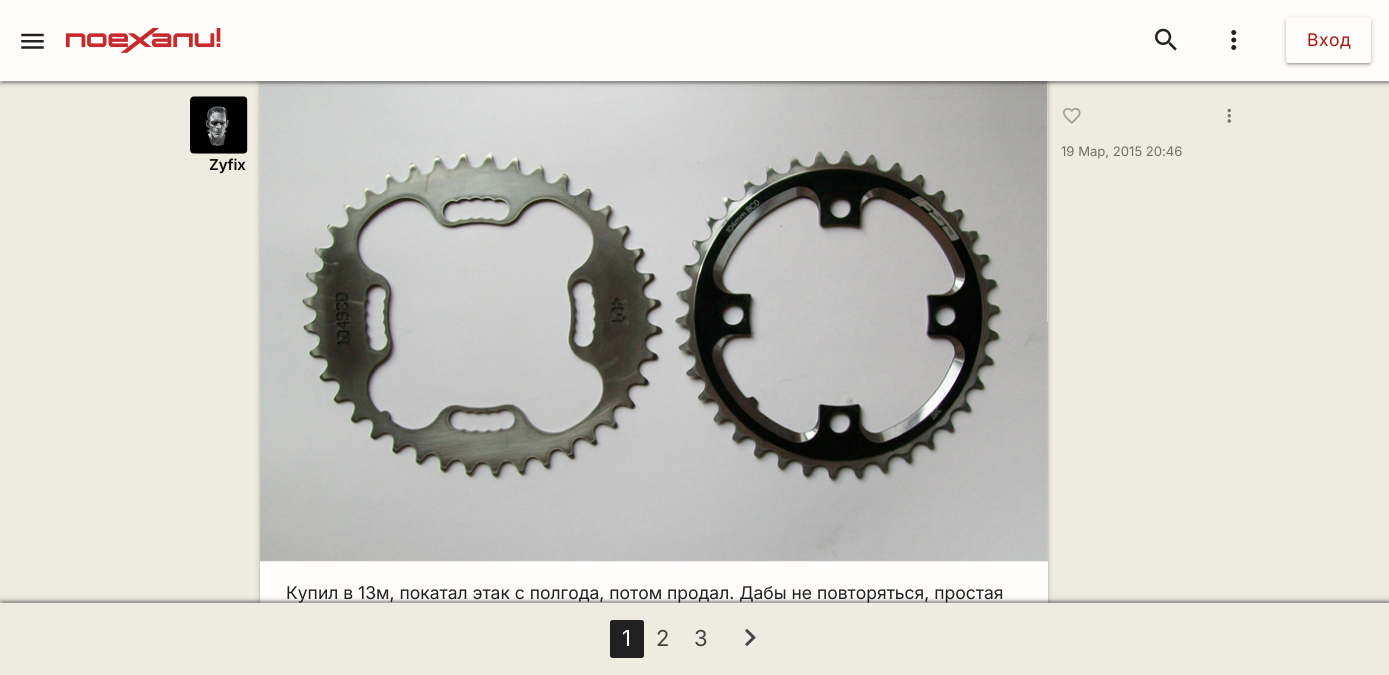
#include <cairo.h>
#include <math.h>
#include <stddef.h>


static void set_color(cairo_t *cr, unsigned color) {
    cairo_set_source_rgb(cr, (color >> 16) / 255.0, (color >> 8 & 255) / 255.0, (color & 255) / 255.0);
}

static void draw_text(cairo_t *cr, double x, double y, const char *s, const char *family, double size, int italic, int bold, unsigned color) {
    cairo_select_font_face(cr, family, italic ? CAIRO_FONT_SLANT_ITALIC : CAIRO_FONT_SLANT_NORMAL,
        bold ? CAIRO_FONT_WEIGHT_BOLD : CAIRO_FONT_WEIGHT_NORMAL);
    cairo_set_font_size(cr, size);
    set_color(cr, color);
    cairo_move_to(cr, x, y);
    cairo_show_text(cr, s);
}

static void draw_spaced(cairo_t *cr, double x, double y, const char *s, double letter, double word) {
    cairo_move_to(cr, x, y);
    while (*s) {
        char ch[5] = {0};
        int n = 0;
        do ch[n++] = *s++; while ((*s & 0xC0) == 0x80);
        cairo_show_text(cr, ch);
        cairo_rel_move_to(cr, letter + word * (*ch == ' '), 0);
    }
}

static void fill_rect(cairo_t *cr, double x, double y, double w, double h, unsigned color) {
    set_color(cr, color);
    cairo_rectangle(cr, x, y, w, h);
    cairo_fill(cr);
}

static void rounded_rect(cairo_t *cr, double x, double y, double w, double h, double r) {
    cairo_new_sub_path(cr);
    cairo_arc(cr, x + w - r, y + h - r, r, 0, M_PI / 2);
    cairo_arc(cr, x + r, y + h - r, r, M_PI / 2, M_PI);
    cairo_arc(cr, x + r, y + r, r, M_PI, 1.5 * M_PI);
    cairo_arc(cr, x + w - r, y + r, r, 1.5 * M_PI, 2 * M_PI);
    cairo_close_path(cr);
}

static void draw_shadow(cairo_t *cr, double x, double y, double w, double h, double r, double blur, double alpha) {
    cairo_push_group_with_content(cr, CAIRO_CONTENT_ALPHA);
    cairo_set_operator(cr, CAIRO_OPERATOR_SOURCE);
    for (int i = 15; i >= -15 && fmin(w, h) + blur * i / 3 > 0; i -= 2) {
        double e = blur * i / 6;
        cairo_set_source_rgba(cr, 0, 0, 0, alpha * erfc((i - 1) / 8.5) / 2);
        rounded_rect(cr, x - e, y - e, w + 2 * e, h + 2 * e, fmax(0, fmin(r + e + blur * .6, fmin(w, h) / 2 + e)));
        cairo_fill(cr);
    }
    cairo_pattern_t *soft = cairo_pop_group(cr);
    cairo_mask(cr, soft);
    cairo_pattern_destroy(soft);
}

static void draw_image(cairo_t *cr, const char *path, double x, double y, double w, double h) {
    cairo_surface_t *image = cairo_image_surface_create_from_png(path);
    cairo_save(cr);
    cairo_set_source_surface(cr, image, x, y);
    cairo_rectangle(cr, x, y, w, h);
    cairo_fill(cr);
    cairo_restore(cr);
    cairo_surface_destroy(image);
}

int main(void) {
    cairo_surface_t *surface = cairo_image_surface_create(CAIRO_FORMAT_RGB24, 1389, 675);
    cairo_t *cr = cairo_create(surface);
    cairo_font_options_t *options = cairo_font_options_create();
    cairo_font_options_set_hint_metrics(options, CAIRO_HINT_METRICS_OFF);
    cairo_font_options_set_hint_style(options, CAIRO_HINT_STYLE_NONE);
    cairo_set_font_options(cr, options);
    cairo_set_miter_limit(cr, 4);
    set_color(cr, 0xEEEBE1);
    cairo_paint(cr);
    set_color(cr, 0x000000);
    draw_shadow(cr, 260, 71, 788, 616, 2.5, 3, 0.2);
    draw_shadow(cr, 260, 73, 788, 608, 2.5, 1, 0.14);
    fill_rect(cr, 260, 81, 788, 522, 0xFFFEFC);
    draw_image(cr, "assets/img8.png", 260, 81, 788, 481);
    set_color(cr, 0x000000);
    draw_shadow(cr, 0, 1, 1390, 82, 0, 3, 0.2);
    draw_shadow(cr, 3, 6, 1385, 77, 0, 0.5, 0.12);
    draw_shadow(cr, 0, 3, 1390, 81, 0, 1, 0.14);
    fill_rect(cr, 0, 0, 1389, 81, 0xFFFEFC);
    draw_image(cr, "assets/img1.png", 21, 33, 23, 16);
    draw_image(cr, "assets/img2.png", 65, 28, 156, 25);
    draw_image(cr, "assets/img3.png", 1155, 28, 22, 23);
    draw_image(cr, "assets/img4.png", 1231, 30, 6, 20);
    set_color(cr, 0x000000);
    draw_shadow(cr, 1286, 19, 85, 45, 2.5, 3, 0.2);
    draw_shadow(cr, 1289, 24, 80, 40, 0, 0.5, 0.12);
    draw_shadow(cr, 1286, 20, 85, 45, 2.5, 1, 0.14);
    set_color(cr, 0xFFFEFC);
    rounded_rect(cr, 1286, 18, 85, 45, 2.5);
    cairo_fill(cr);
    cairo_select_font_face(cr, "Inter", CAIRO_FONT_SLANT_NORMAL, CAIRO_FONT_WEIGHT_NORMAL);
    cairo_set_font_size(cr, 17.5);
    set_color(cr, 0xA61A14);
    draw_spaced(cr, 1307, 46, "Вход", 0.5, 0);
    draw_image(cr, "assets/img5.png", 1227, 108, 4, 15);
    draw_image(cr, "assets/img6.png", 1063, 107, 18, 17);
    draw_text(cr, 1061, 156, "19 Мар, 2015 20:46", "Inter", 13.1, 0, 0, 0x706E6B);
    set_color(cr, 0xFFFEFC);
    rounded_rect(cr, 190, 96, 58, 58, 5);
    cairo_fill(cr);
    draw_image(cr, "assets/img7.png", 190, 96, 58, 58);
    draw_text(cr, 209, 170, "Zyfix", "Inter SemiBold", 15, 0, 0, 0x0A0A0A);
    draw_text(cr, 286, 599, "Купил в 13м, покатал этак с полгода, потом продал. Дабы не повторяться, простая", "Inter", 17.5, 0, 0, 0x212121);
    set_color(cr, 0x000000);
    draw_shadow(cr, 0, 601, 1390, 73, 0, 3, 0.2);
    draw_shadow(cr, 3, 601, 1385, 68, 0, 0.5, 0.12);
    draw_shadow(cr, 0, 600, 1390, 73, 0, 1, 0.14);
    fill_rect(cr, 0, 603, 1389, 72, 0xEEEBE1);
    set_color(cr, 0x212121);
    rounded_rect(cr, 610, 620, 34, 38, 2.5);
    cairo_fill(cr);
    draw_text(cr, 622, 646, "1", "Inter", 22, 0, 0, 0xFFFFFF);
    draw_text(cr, 656, 646, "2", "Inter", 22, 0, 0, 0x444444);
    draw_text(cr, 694, 646, "3", "Inter", 22, 0, 0, 0x444444);
    draw_image(cr, "assets/img9.png", 745, 628, 11, 19);
    cairo_surface_write_to_png(surface, "output.png");
    cairo_font_options_destroy(options);
    cairo_destroy(cr);
    cairo_surface_destroy(surface);
    return 0;
}
